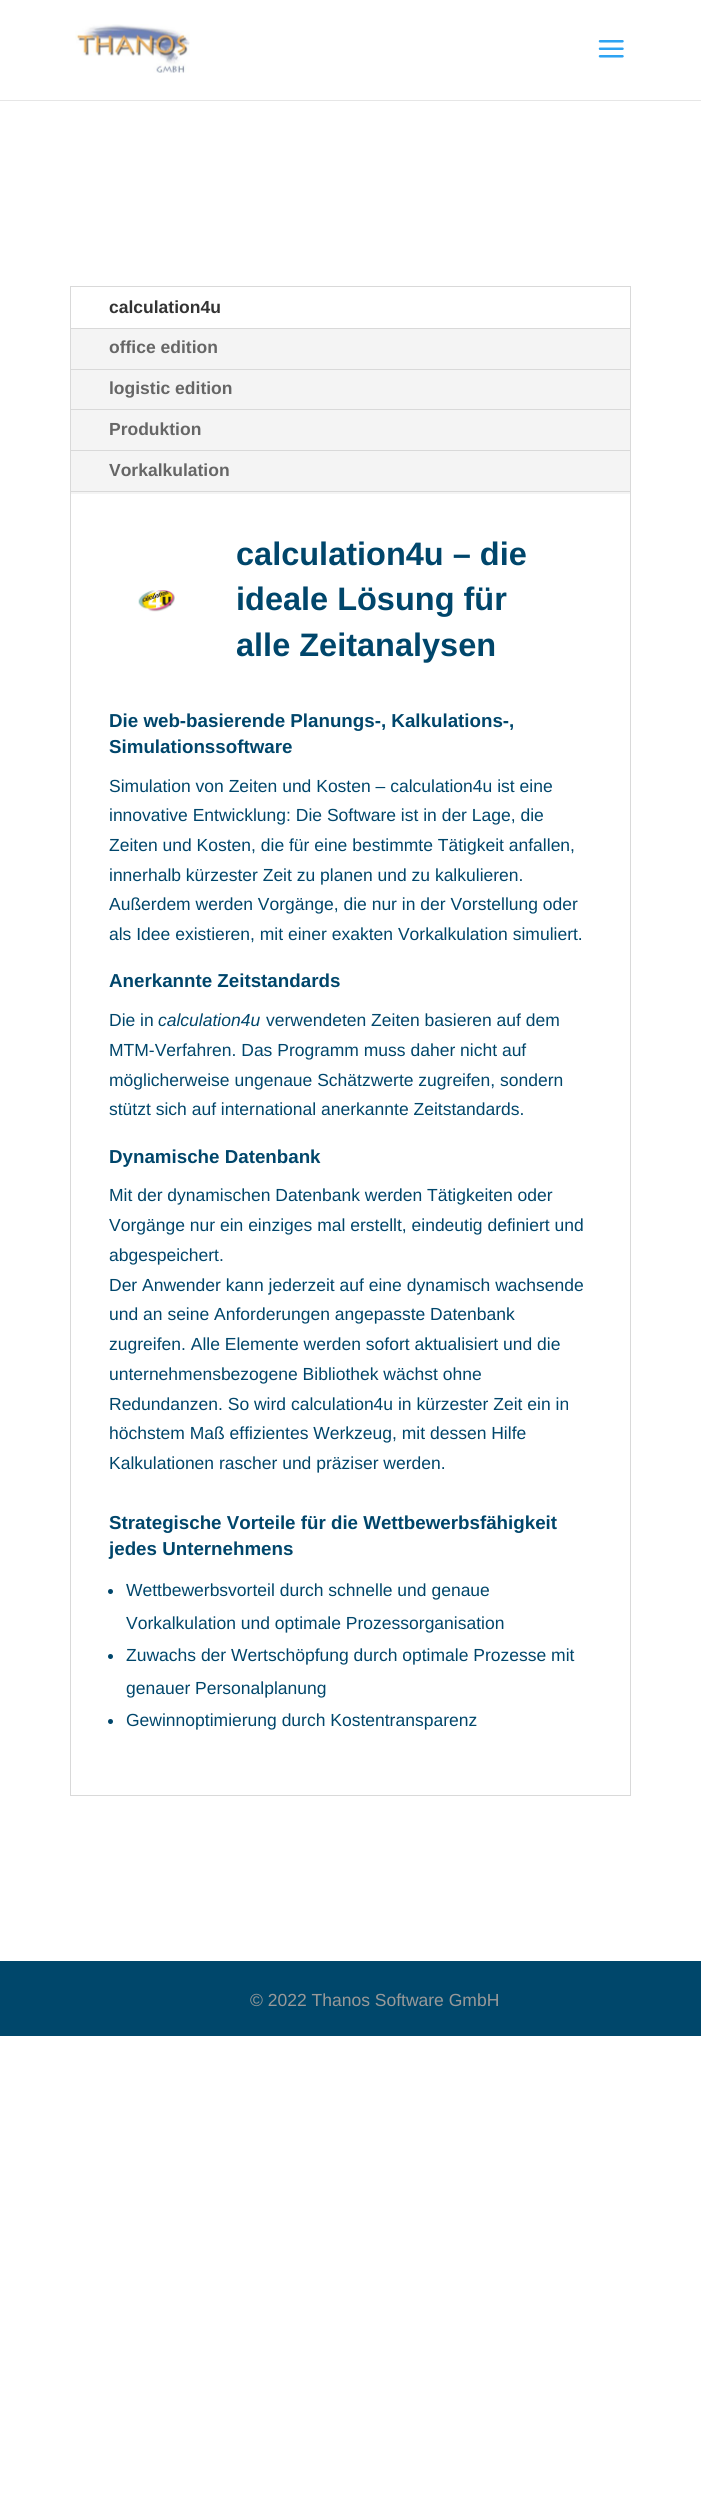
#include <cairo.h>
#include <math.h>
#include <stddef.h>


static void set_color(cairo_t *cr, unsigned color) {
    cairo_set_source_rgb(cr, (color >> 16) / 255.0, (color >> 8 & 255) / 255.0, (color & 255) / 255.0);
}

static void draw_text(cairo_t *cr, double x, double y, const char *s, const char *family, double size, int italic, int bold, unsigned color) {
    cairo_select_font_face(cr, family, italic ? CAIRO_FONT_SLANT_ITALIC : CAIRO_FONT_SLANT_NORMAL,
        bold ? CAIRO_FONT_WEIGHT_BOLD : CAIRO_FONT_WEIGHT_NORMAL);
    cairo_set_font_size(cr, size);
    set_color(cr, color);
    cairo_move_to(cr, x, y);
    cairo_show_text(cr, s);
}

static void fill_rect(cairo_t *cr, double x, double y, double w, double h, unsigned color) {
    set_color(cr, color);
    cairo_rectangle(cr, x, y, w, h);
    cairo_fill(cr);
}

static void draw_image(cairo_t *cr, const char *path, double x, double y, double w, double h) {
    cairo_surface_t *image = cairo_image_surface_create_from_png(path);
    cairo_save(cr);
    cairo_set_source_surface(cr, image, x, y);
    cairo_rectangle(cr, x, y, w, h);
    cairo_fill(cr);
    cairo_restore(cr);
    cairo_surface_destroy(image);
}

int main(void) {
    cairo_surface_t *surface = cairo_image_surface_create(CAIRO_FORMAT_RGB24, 701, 2498);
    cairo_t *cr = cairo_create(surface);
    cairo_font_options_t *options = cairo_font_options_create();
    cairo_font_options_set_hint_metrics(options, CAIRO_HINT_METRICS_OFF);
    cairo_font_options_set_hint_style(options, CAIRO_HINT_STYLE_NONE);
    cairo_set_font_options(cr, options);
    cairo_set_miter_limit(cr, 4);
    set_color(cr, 0xFFFFFF);
    cairo_paint(cr);
    fill_rect(cr, 0, 100, 701, 1, 0xE6E6E6);
    draw_image(cr, "assets/img1.png", 75, 24, 115, 49);
    draw_image(cr, "assets/img2.png", 598, 40, 26, 18);
    cairo_rectangle(cr, 70.5, 286.5, 560, 1509);
    set_color(cr, 0xD9D9D9);
    cairo_set_line_width(cr, 1);
    cairo_stroke(cr);
    fill_rect(cr, 71, 329, 559, 165, 0xF4F4F4);
    fill_rect(cr, 71, 328, 559, 1, 0xD9D9D9);
    draw_text(cr, 109, 313, "calculation4u", "Liberation Sans", 17.5, 0, 1, 0x333333);
    fill_rect(cr, 71, 369, 559, 1, 0xD9D9D9);
    draw_text(cr, 109, 353, "office edition", "Liberation Sans", 17.5, 0, 1, 0x666666);
    fill_rect(cr, 71, 409, 559, 1, 0xD9D9D9);
    draw_text(cr, 109, 394, "logistic edition", "Liberation Sans", 17.5, 0, 1, 0x666666);
    fill_rect(cr, 71, 450, 559, 1, 0xD9D9D9);
    draw_text(cr, 109, 435, "Produktion", "Liberation Sans", 17.5, 0, 1, 0x666666);
    draw_text(cr, 109, 476, "Vorkalkulation", "Liberation Sans", 17.5, 0, 1, 0x666666);
    fill_rect(cr, 71, 491, 559, 1, 0xD9D9D9);
    draw_image(cr, "assets/img3.png", 138, 590, 37, 22);
    draw_text(cr, 236, 565, "calculation4u – die", "Liberation Sans", 32.5, 0, 1, 0x00466B);
    draw_text(cr, 236, 610, "ideale Lösung für", "Liberation Sans", 32.5, 0, 1, 0x00466B);
    draw_text(cr, 236, 656, "alle Zeitanalysen", "Liberation Sans", 32.5, 0, 1, 0x00466B);
    draw_text(cr, 109, 727, "Die web-basierende Planungs-, Kalkulations-,", "Liberation Sans", 18.75, 0, 1, 0x00466B);
    draw_text(cr, 109, 753, "Simulationssoftware", "Liberation Sans", 18.75, 0, 1, 0x00466B);
    draw_text(cr, 109, 792, "Simulation von Zeiten und Kosten – calculation4u ist eine", "Liberation Sans", 17.5, 0, 0, 0x00466B);
    draw_text(cr, 109, 821, "innovative Entwicklung: Die Software ist in der Lage, die", "Liberation Sans", 17.5, 0, 0, 0x00466B);
    draw_text(cr, 109, 851, "Zeiten und Kosten, die für eine bestimmte Tätigkeit anfallen,", "Liberation Sans", 17.5, 0, 0, 0x00466B);
    draw_text(cr, 109, 881, "innerhalb kürzester Zeit zu planen und zu kalkulieren.", "Liberation Sans", 17.5, 0, 0, 0x00466B);
    draw_text(cr, 109, 910, "Außerdem werden Vorgänge, die nur in der Vorstellung oder", "Liberation Sans", 17.5, 0, 0, 0x00466B);
    draw_text(cr, 109, 940, "als Idee existieren, mit einer exakten Vorkalkulation simuliert.", "Liberation Sans", 17.5, 0, 0, 0x00466B);
    draw_text(cr, 109, 987, "Anerkannte Zeitstandards", "Liberation Sans", 18.75, 0, 1, 0x00466B);
    draw_text(cr, 109, 1026, "Die in", "Liberation Sans", 17.5, 0, 0, 0x00466B);
    draw_text(cr, 158, 1026, "calculation4u", "Liberation Sans", 17.5, 1, 0, 0x00466B);
    draw_text(cr, 266, 1026, "verwendeten Zeiten basieren auf dem", "Liberation Sans", 17.5, 0, 0, 0x00466B);
    draw_text(cr, 109, 1056, "MTM-Verfahren. Das Programm muss daher nicht auf", "Liberation Sans", 17.5, 0, 0, 0x00466B);
    draw_text(cr, 109, 1086, "möglicherweise ungenaue Schätzwerte zugreifen, sondern", "Liberation Sans", 17.5, 0, 0, 0x00466B);
    draw_text(cr, 109, 1115, "stützt sich auf international anerkannte Zeitstandards.", "Liberation Sans", 17.5, 0, 0, 0x00466B);
    draw_text(cr, 109, 1163, "Dynamische Datenbank", "Liberation Sans", 18.75, 0, 1, 0x00466B);
    draw_text(cr, 109, 1201, "Mit der dynamischen Datenbank werden Tätigkeiten oder", "Liberation Sans", 17.5, 0, 0, 0x00466B);
    draw_text(cr, 109, 1231, "Vorgänge nur ein einziges mal erstellt, eindeutig definiert und", "Liberation Sans", 17.5, 0, 0, 0x00466B);
    draw_text(cr, 109, 1261, "abgespeichert.", "Liberation Sans", 17.5, 0, 0, 0x00466B);
    draw_text(cr, 109, 1291, "Der Anwender kann jederzeit auf eine dynamisch wachsende", "Liberation Sans", 17.5, 0, 0, 0x00466B);
    draw_text(cr, 109, 1320, "und an seine Anforderungen angepasste Datenbank", "Liberation Sans", 17.5, 0, 0, 0x00466B);
    draw_text(cr, 109, 1350, "zugreifen. Alle Elemente werden sofort aktualisiert und die", "Liberation Sans", 17.5, 0, 0, 0x00466B);
    draw_text(cr, 109, 1380, "unternehmensbezogene Bibliothek wächst ohne", "Liberation Sans", 17.5, 0, 0, 0x00466B);
    draw_text(cr, 109, 1410, "Redundanzen. So wird calculation4u in kürzester Zeit ein in", "Liberation Sans", 17.5, 0, 0, 0x00466B);
    draw_text(cr, 109, 1439, "höchstem Maß effizientes Werkzeug, mit dessen Hilfe", "Liberation Sans", 17.5, 0, 0, 0x00466B);
    draw_text(cr, 109, 1469, "Kalkulationen rascher und präziser werden.", "Liberation Sans", 17.5, 0, 0, 0x00466B);
    draw_text(cr, 109, 1529, "Strategische Vorteile für die Wettbewerbsfähigkeit", "Liberation Sans", 18.75, 0, 1, 0x00466B);
    draw_text(cr, 109, 1555, "jedes Unternehmens", "Liberation Sans", 18.75, 0, 1, 0x00466B);
    cairo_new_path(cr);
    cairo_arc(cr, 110.5, 1591.5, 2.5, 0, 2 * M_PI);
    cairo_fill(cr);
    draw_text(cr, 126, 1596, "Wettbewerbsvorteil durch schnelle und genaue", "Liberation Sans", 17.5, 0, 0, 0x00466B);
    draw_text(cr, 126, 1629, "Vorkalkulation und optimale Prozessorganisation", "Liberation Sans", 17.5, 0, 0, 0x00466B);
    cairo_new_path(cr);
    cairo_arc(cr, 110.5, 1656.5, 2.5, 0, 2 * M_PI);
    cairo_fill(cr);
    draw_text(cr, 126, 1661, "Zuwachs der Wertschöpfung durch optimale Prozesse mit", "Liberation Sans", 17.5, 0, 0, 0x00466B);
    draw_text(cr, 126, 1694, "genauer Personalplanung", "Liberation Sans", 17.5, 0, 0, 0x00466B);
    cairo_new_path(cr);
    cairo_arc(cr, 110.5, 1721.5, 2.5, 0, 2 * M_PI);
    cairo_fill(cr);
    draw_text(cr, 126, 1726, "Gewinnoptimierung durch Kostentransparenz", "Liberation Sans", 17.5, 0, 0, 0x00466B);
    fill_rect(cr, 0, 1961, 701, 75, 0x00476B);
    draw_text(cr, 250, 2006, "© 2022 Thanos Software GmbH", "Liberation Sans", 17.5, 0, 0, 0x999999);
    cairo_surface_write_to_png(surface, "output.png");
    cairo_font_options_destroy(options);
    cairo_destroy(cr);
    cairo_surface_destroy(surface);
    return 0;
}
